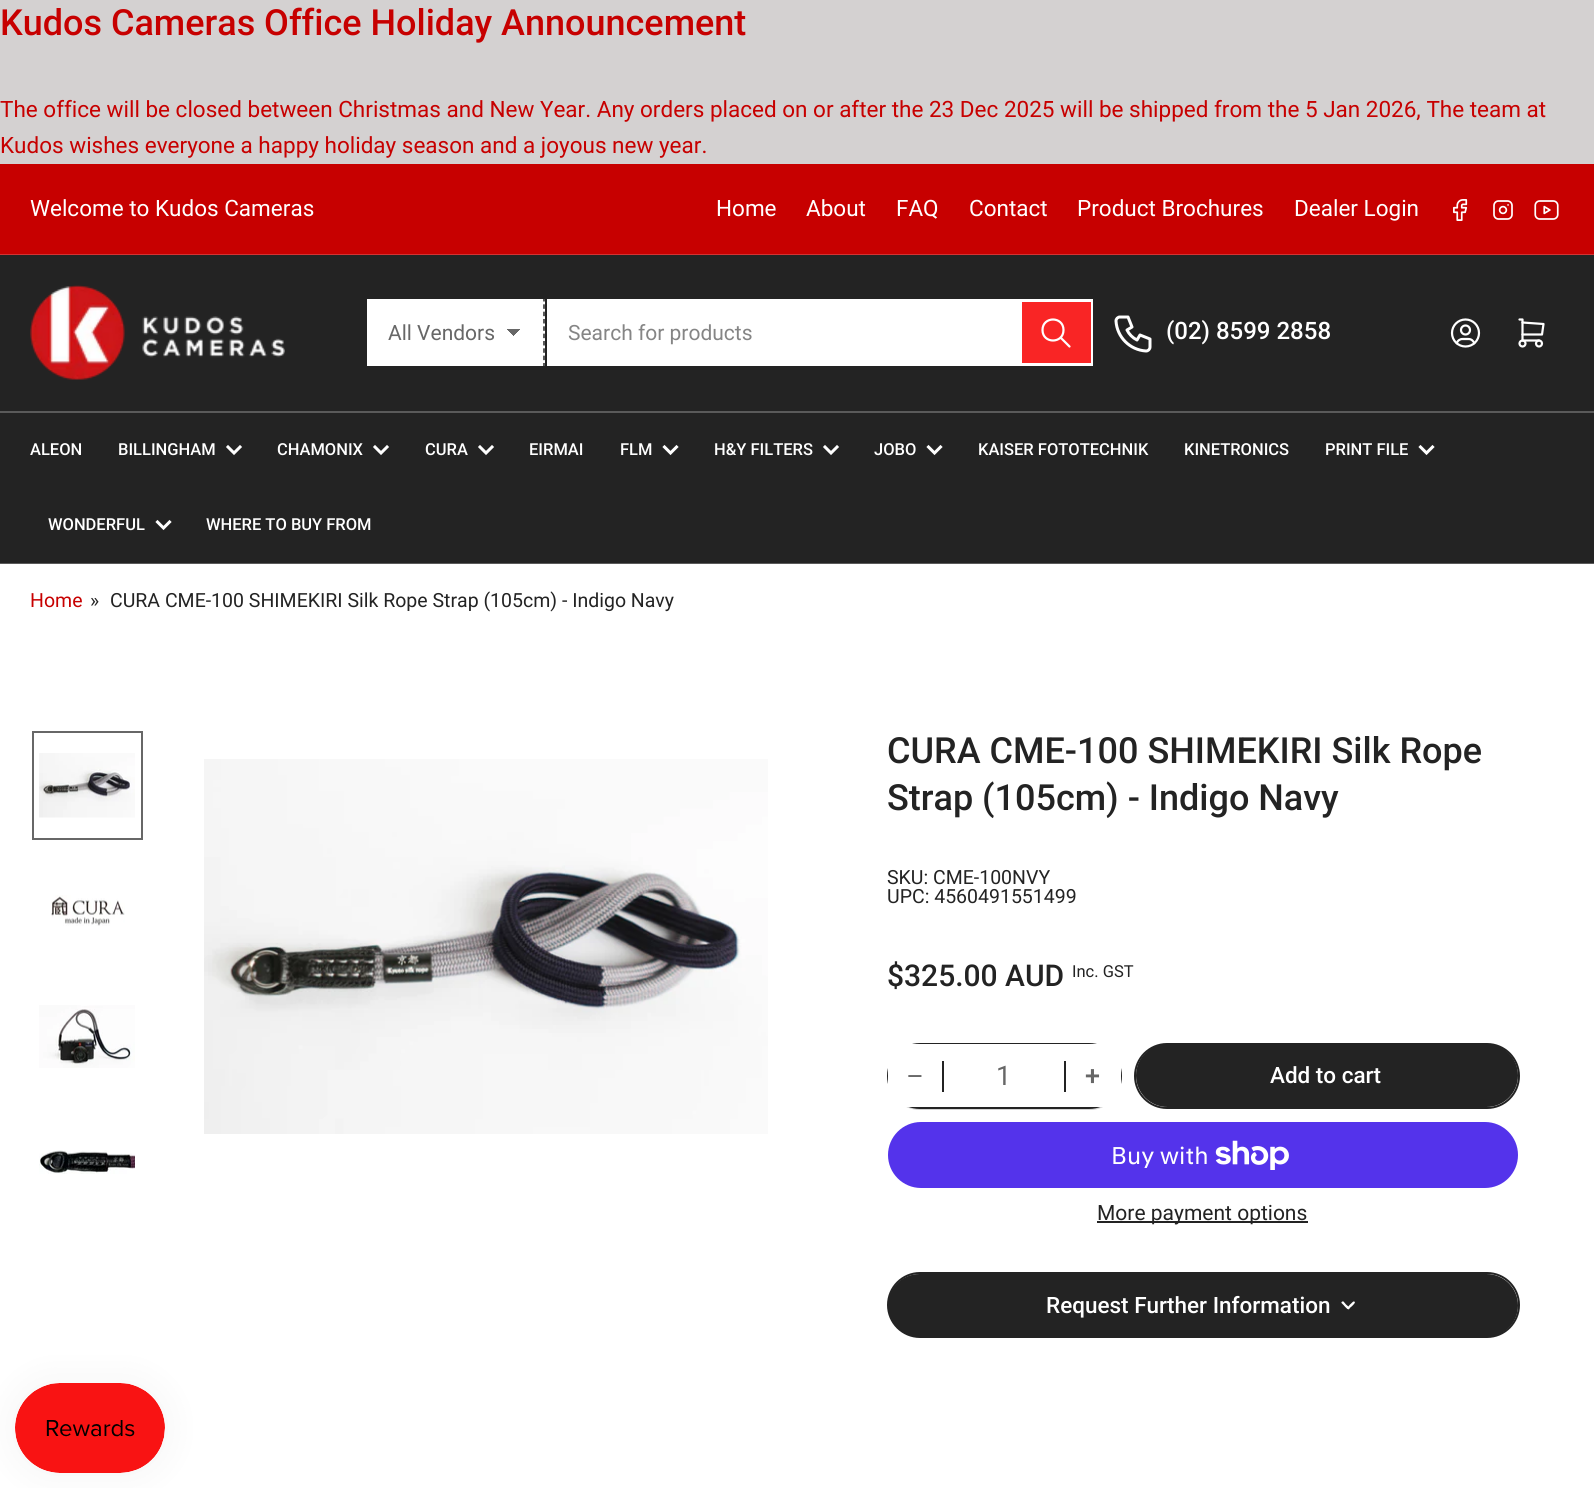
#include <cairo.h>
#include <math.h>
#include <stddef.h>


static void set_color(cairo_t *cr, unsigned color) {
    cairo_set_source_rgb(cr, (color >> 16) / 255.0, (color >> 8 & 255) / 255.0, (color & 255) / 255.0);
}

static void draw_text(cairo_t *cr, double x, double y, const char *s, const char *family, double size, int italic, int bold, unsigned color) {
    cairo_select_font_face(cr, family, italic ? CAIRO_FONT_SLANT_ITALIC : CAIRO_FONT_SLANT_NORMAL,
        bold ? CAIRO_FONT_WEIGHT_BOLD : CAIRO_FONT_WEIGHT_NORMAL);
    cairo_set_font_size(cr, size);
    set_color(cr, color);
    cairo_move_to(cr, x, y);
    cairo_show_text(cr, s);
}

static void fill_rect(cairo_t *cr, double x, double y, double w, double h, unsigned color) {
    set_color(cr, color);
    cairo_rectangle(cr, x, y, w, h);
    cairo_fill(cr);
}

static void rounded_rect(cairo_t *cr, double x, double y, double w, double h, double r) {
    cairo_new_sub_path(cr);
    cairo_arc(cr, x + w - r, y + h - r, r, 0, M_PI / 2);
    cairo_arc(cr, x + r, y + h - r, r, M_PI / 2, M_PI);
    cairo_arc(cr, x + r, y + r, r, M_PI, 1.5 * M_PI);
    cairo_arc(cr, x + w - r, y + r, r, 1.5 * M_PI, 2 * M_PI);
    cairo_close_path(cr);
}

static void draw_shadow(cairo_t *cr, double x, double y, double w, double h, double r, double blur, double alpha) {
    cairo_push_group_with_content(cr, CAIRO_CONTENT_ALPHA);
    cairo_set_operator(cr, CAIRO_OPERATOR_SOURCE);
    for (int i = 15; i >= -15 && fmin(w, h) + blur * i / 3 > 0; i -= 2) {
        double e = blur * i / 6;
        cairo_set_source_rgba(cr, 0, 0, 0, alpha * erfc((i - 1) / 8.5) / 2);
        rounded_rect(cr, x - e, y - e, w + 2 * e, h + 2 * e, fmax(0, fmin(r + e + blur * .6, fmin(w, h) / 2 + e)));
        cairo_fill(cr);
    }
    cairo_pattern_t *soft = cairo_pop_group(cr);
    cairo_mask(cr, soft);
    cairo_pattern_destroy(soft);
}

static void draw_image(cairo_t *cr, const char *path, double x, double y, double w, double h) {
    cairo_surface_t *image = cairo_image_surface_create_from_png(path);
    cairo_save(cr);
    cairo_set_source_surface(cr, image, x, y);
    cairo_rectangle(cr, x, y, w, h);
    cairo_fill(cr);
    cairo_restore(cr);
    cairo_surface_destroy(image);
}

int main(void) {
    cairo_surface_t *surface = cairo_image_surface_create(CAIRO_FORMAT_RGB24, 1594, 1488);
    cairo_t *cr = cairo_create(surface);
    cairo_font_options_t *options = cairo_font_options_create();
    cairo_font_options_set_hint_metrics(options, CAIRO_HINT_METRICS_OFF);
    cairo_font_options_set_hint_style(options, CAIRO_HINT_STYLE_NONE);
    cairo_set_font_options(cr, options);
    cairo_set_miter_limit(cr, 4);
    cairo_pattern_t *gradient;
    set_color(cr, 0xFFFFFF);
    cairo_paint(cr);
    fill_rect(cr, 0, 0, 1594, 164, 0xD4D1D1);
    draw_text(cr, 0, 35, "Kudos Cameras Office Holiday Announcement", "Roboto Medium", 36, 0, 0, 0xC70000);
    draw_text(cr, 0, 117, "The office will be closed between Christmas and New Year. Any orders placed on or after the 23 Dec 2025 will be shipped from the 5 Jan 2026, The team at", "Roboto", 22.5, 0, 0, 0xC70000);
    draw_text(cr, 0, 153, "Kudos wishes everyone a happy holiday season and a joyous new year.", "Roboto", 22.5, 0, 0, 0xC70000);
    fill_rect(cr, 0, 164, 1594, 90, 0xC70000);
    fill_rect(cr, 0, 254, 1594, 1, 0xD23333);
    draw_text(cr, 30, 216, "Welcome to Kudos Cameras", "Roboto", 22.5, 0, 0, 0xFFFFFF);
    draw_text(cr, 716, 216, "Home", "Roboto", 22.5, 0, 0, 0xFFFFFF);
    draw_text(cr, 806, 216, "About", "Roboto", 22.5, 0, 0, 0xFFFFFF);
    draw_text(cr, 896, 216, "FAQ", "Roboto", 22.5, 0, 0, 0xFFFFFF);
    draw_text(cr, 969, 216, "Contact", "Roboto", 22.5, 0, 0, 0xFFFFFF);
    draw_text(cr, 1077, 216, "Product Brochures", "Roboto", 22.5, 0, 0, 0xFFFFFF);
    draw_text(cr, 1294, 216, "Dealer Login", "Roboto", 22.5, 0, 0, 0xFFFFFF);
    draw_image(cr, "assets/img1.png", 1453, 199, 15, 22);
    draw_image(cr, "assets/img2.png", 1493, 200, 20, 20);
    draw_image(cr, "assets/img3.png", 1534, 200, 25, 20);
    fill_rect(cr, 0, 255, 1594, 156, 0x232323);
    draw_image(cr, "assets/img4.png", 30, 285, 255, 95);
    fill_rect(cr, 367, 299, 178, 67, 0xFFFFFF);
    gradient = cairo_pattern_create_linear(513, 329, 521, 336);
    cairo_pattern_add_color_stop_rgba(gradient, 0.5, 0.404, 0.404, 0.404, 1);
    cairo_pattern_add_color_stop_rgba(gradient, 0.5, 1, 1, 1, 1);
    cairo_set_source(cr, gradient);
    cairo_pattern_destroy(gradient);
    cairo_rectangle(cr, 513, 329, 8, 7);
    cairo_fill(cr);
    gradient = cairo_pattern_create_linear(506, 336, 513, 329);
    cairo_pattern_add_color_stop_rgba(gradient, 0.5, 1, 1, 1, 1);
    cairo_pattern_add_color_stop_rgba(gradient, 0.5, 0.404, 0.404, 0.404, 1);
    cairo_set_source(cr, gradient);
    cairo_pattern_destroy(gradient);
    cairo_rectangle(cr, 506, 329, 7, 6);
    cairo_fill(cr);
    cairo_new_path(cr);
    cairo_move_to(cr, 544, 297);
    cairo_line_to(cr, 544, 367.5);
    set_color(cr, 0x232323);
    cairo_set_line_width(cr, 1.5);
    cairo_set_dash(cr, (double[]){4.5, 2.83}, 2, 0);
    cairo_stroke(cr);
    draw_text(cr, 388, 340, "All Vendors", "Roboto", 21, 0, 0, 0x676767);
    fill_rect(cr, 547, 299, 546, 67, 0xFFFFFF);
    draw_text(cr, 568, 340, "Search for products", "Roboto", 21, 0, 0, 0x858585);
    cairo_rectangle(cr, 1023, 303, 67, 59);
    set_color(cr, 0xF92525);
    cairo_set_line_width(cr, 2);
    cairo_set_dash(cr, NULL, 0, 0);
    cairo_stroke(cr);
    fill_rect(cr, 1024, 304, 65, 57, 0xF92525);
    cairo_new_path(cr);
    cairo_move_to(cr, 1042.5, 330);
    cairo_curve_to(cr, 1042.5, 344, 1063.5, 344, 1063.5, 330);
    cairo_curve_to(cr, 1063.5, 316, 1042.5, 316, 1042.5, 330);
    cairo_move_to(cr, 1069.5, 346.5);
    cairo_line_to(cr, 1060.5, 337.5);
    set_color(cr, 0xFFFFFF);
    cairo_set_line_width(cr, 2.2);
    cairo_set_line_cap(cr, CAIRO_LINE_CAP_ROUND);
    cairo_set_line_join(cr, CAIRO_LINE_JOIN_ROUND);
    cairo_stroke(cr);
    draw_image(cr, "assets/img5.png", 1114, 315, 38, 38);
    draw_text(cr, 1166, 339, "(02) 8599 2858", "Roboto Medium", 24, 0, 0, 0xFFFFFF);
    draw_image(cr, "assets/img6.png", 1450, 318, 31, 30);
    draw_image(cr, "assets/img7.png", 1518, 318, 27, 30);
    fill_rect(cr, 0, 413, 1594, 150, 0x232323);
    fill_rect(cr, 0, 563, 1594, 1, 0x5A5A5A);
    fill_rect(cr, 0, 411, 1594, 2, 0x5A5A5A);
    draw_text(cr, 30, 455, "ALEON", "Roboto Medium", 16.5, 0, 0, 0xFFFFFF);
    draw_text(cr, 118, 455, "BILLINGHAM", "Roboto Medium", 16.5, 0, 0, 0xFFFFFF);
    cairo_new_path(cr);
    cairo_move_to(cr, 240, 447);
    cairo_line_to(cr, 234, 453);
    cairo_line_to(cr, 228, 447);
    cairo_set_line_width(cr, 3);
    cairo_set_line_cap(cr, CAIRO_LINE_CAP_SQUARE);
    cairo_set_line_join(cr, CAIRO_LINE_JOIN_MITER);
    cairo_stroke(cr);
    draw_text(cr, 277, 455, "CHAMONIX", "Roboto Medium", 16.5, 0, 0, 0xFFFFFF);
    cairo_new_path(cr);
    cairo_move_to(cr, 387, 447);
    cairo_line_to(cr, 381, 453);
    cairo_line_to(cr, 375, 447);
    cairo_stroke(cr);
    draw_text(cr, 425, 455, "CURA", "Roboto Medium", 16.5, 0, 0, 0xFFFFFF);
    cairo_new_path(cr);
    cairo_move_to(cr, 492, 447);
    cairo_line_to(cr, 486, 453);
    cairo_line_to(cr, 480, 447);
    cairo_stroke(cr);
    draw_text(cr, 529, 455, "EIRMAI", "Roboto Medium", 16.5, 0, 0, 0xFFFFFF);
    draw_text(cr, 620, 455, "FLM", "Roboto Medium", 16.5, 0, 0, 0xFFFFFF);
    cairo_new_path(cr);
    cairo_move_to(cr, 676.5, 447);
    cairo_line_to(cr, 670.5, 453);
    cairo_line_to(cr, 664.5, 447);
    cairo_stroke(cr);
    draw_text(cr, 714, 455, "H&Y FILTERS", "Roboto Medium", 16.5, 0, 0, 0xFFFFFF);
    cairo_new_path(cr);
    cairo_move_to(cr, 837, 447);
    cairo_line_to(cr, 831, 453);
    cairo_line_to(cr, 825, 447);
    cairo_stroke(cr);
    draw_text(cr, 874, 455, "JOBO", "Roboto Medium", 16.5, 0, 0, 0xFFFFFF);
    cairo_new_path(cr);
    cairo_move_to(cr, 940.5, 447);
    cairo_line_to(cr, 934.5, 453);
    cairo_line_to(cr, 928.5, 447);
    cairo_stroke(cr);
    draw_text(cr, 978, 455, "KAISER FOTOTECHNIK", "Roboto Medium", 16.5, 0, 0, 0xFFFFFF);
    draw_text(cr, 1184, 455, "KINETRONICS", "Roboto Medium", 16.5, 0, 0, 0xFFFFFF);
    draw_text(cr, 1325, 455, "PRINT FILE", "Roboto Medium", 16.5, 0, 0, 0xFFFFFF);
    cairo_new_path(cr);
    cairo_move_to(cr, 1432.5, 447);
    cairo_line_to(cr, 1426.5, 453);
    cairo_line_to(cr, 1420.5, 447);
    cairo_stroke(cr);
    draw_text(cr, 48, 530, "WONDERFUL", "Roboto Medium", 16.5, 0, 0, 0xFFFFFF);
    cairo_new_path(cr);
    cairo_move_to(cr, 169.5, 522);
    cairo_line_to(cr, 163.5, 528);
    cairo_line_to(cr, 157.5, 522);
    cairo_stroke(cr);
    draw_text(cr, 206, 530, "WHERE TO BUY FROM", "Roboto Medium", 16.5, 0, 0, 0xFFFFFF);
    draw_text(cr, 30, 607, "Home", "Roboto", 19.5, 0, 0, 0xC70000);
    draw_text(cr, 90, 607, "»", "Roboto", 19.5, 0, 0, 0x232323);
    draw_text(cr, 110, 607, "CURA CME-100 SHIMEKIRI Silk Rope Strap (105cm) - Indigo Navy", "Roboto", 19.5, 0, 0, 0x232323);
    cairo_rectangle(cr, 33, 732, 109, 107);
    set_color(cr, 0x676767);
    cairo_set_line_width(cr, 2);
    cairo_set_line_cap(cr, CAIRO_LINE_CAP_BUTT);
    cairo_stroke(cr);
    draw_image(cr, "assets/img8.png", 39, 753, 96, 65);
    draw_image(cr, "assets/img9.png", 51, 895, 74, 31);
    draw_image(cr, "assets/img10.png", 39, 1005, 96, 63);
    draw_image(cr, "assets/img11.png", 39, 1150, 96, 24);
    draw_image(cr, "assets/img12.png", 204, 759, 564, 375);
    draw_text(cr, 887, 763, "CURA CME-100 SHIMEKIRI Silk Rope", "Roboto Medium", 36, 0, 0, 0x232323);
    draw_text(cr, 887, 810, "Strap (105cm) - Indigo Navy", "Roboto Medium", 36, 0, 0, 0x232323);
    draw_text(cr, 887, 884, "SKU: CME-100NVY", "Roboto", 19.5, 0, 0, 0x232323);
    draw_text(cr, 887, 903, "UPC: 4560491551499", "Roboto", 19.5, 0, 0, 0x232323);
    draw_text(cr, 887, 986, "$325.00 AUD", "Roboto Medium", 30, 0, 0, 0x232323);
    draw_text(cr, 1072, 977, "Inc. GST", "Roboto", 16.5, 0, 0, 0x232323);
    set_color(cr, 0xD3D3D3);
    cairo_new_path(cr);
    cairo_move_to(cr, 888, 1077);
    cairo_line_to(cr, 888, 1078);
    cairo_curve_to(cr, 888, 1096, 902, 1110, 920, 1110);
    cairo_line_to(cr, 1090, 1110);
    cairo_curve_to(cr, 1107, 1110, 1121, 1096, 1121, 1078);
    cairo_line_to(cr, 1120, 1072);
    cairo_line_to(cr, 1120, 1076);
    cairo_curve_to(cr, 1120, 1093, 1106, 1107, 1089, 1107);
    cairo_line_to(cr, 920, 1107);
    cairo_curve_to(cr, 903, 1107, 889, 1094, 888, 1077);
    cairo_close_path(cr);
    cairo_fill(cr);
    rounded_rect(cr, 888, 1044, 233, 64, 32);
    set_color(cr, 0x232323);
    cairo_stroke(cr);
    fill_rect(cr, 942, 1044, 123, 1, 0xFFFFFF);
    fill_rect(cr, 888, 1044, 54, 63, 0xFFFFFF);
    draw_text(cr, 907, 1085, "−", "Liberation Sans", 27, 0, 0, 0x676767);
    fill_rect(cr, 1065, 1044, 56, 63, 0xFFFFFF);
    fill_rect(cr, 1064, 1061, 2, 31, 0x232323);
    fill_rect(cr, 942, 1061, 2, 31, 0x232323);
    draw_text(cr, 996, 1085, "1", "Roboto", 27, 0, 0, 0x676767);
    draw_text(cr, 1085, 1085, "+", "Roboto Medium", 27, 0, 0, 0x676767);
    rounded_rect(cr, 1135, 1044, 384, 64, 32);
    set_color(cr, 0x232323);
    cairo_stroke(cr);
    rounded_rect(cr, 1136, 1044, 382, 63, 31.5);
    cairo_fill(cr);
    draw_text(cr, 1270, 1083, "Add to cart", "Roboto Medium", 22.5, 0, 0, 0xFFFFFF);
    set_color(cr, 0x5433EB);
    rounded_rect(cr, 888, 1122, 630, 66, 33);
    cairo_fill(cr);
    draw_text(cr, 1111, 1164, "Buy with", "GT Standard", 24, 0, 0, 0xFFFFFF);
    draw_image(cr, "assets/img13.png", 1215, 1140, 74, 30);
    fill_rect(cr, 1097, 1221, 211, 2, 0x232323);
    draw_text(cr, 1097, 1220, "More payment options", "Roboto", 21, 0, 0, 0x232323);
    rounded_rect(cr, 888, 1273, 631, 64, 32);
    cairo_stroke(cr);
    rounded_rect(cr, 888, 1274, 630, 63, 31.5);
    cairo_fill(cr);
    draw_text(cr, 1046, 1313, "Request Further Information", "Roboto Medium", 22.5, 0, 0, 0xFFFFFF);
    cairo_new_path(cr);
    cairo_move_to(cr, 1343.5, 1301.5);
    cairo_line_to(cr, 1346, 1304.5);
    cairo_curve_to(cr, 1347, 1305.5, 1349.5, 1307, 1349.5, 1308.5);
    cairo_curve_to(cr, 1348.5, 1311.5, 1344, 1305.5, 1343.5, 1305);
    cairo_line_to(cr, 1341.5, 1303);
    cairo_curve_to(cr, 1341, 1302, 1342.5, 1301, 1343.5, 1301.5);
    cairo_close_path(cr);
    cairo_fill(cr);
    cairo_new_path(cr);
    cairo_move_to(cr, 1347.5, 1307.5);
    cairo_line_to(cr, 1350, 1304.5);
    cairo_curve_to(cr, 1351, 1304, 1353, 1301, 1354, 1301.5);
    cairo_curve_to(cr, 1357, 1302, 1351.5, 1306.5, 1351, 1307);
    cairo_line_to(cr, 1348.5, 1309);
    cairo_curve_to(cr, 1347.5, 1309.5, 1346.5, 1308, 1347.5, 1307.5);
    cairo_close_path(cr);
    cairo_fill(cr);
    set_color(cr, 0x000000);
    draw_shadow(cr, 15, 1383, 150, 90, 45, 19, 0.05);
    draw_image(cr, "assets/img14.png", 15, 1383, 150, 90);
    cairo_surface_write_to_png(surface, "output.png");
    cairo_font_options_destroy(options);
    cairo_destroy(cr);
    cairo_surface_destroy(surface);
    return 0;
}
